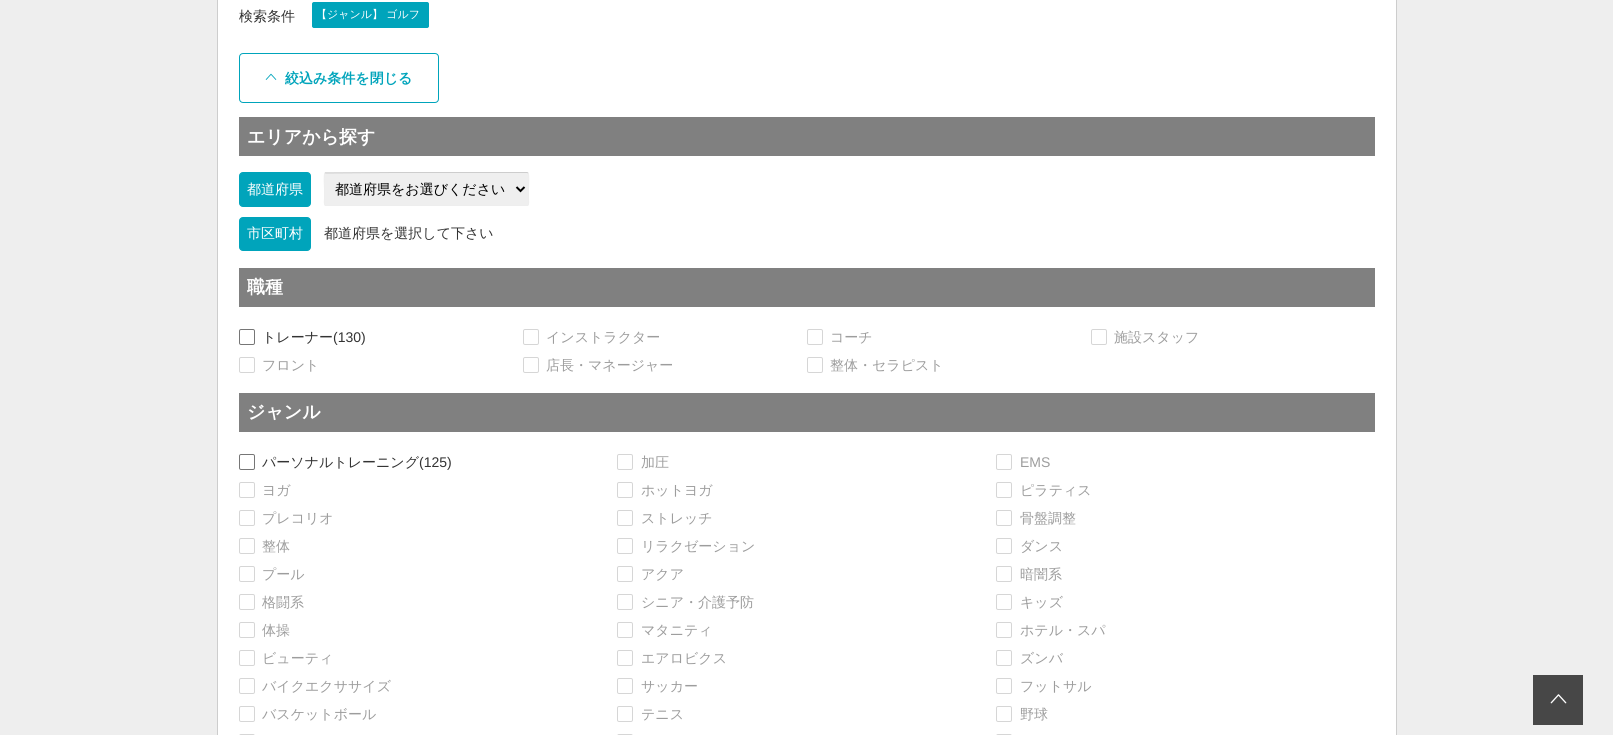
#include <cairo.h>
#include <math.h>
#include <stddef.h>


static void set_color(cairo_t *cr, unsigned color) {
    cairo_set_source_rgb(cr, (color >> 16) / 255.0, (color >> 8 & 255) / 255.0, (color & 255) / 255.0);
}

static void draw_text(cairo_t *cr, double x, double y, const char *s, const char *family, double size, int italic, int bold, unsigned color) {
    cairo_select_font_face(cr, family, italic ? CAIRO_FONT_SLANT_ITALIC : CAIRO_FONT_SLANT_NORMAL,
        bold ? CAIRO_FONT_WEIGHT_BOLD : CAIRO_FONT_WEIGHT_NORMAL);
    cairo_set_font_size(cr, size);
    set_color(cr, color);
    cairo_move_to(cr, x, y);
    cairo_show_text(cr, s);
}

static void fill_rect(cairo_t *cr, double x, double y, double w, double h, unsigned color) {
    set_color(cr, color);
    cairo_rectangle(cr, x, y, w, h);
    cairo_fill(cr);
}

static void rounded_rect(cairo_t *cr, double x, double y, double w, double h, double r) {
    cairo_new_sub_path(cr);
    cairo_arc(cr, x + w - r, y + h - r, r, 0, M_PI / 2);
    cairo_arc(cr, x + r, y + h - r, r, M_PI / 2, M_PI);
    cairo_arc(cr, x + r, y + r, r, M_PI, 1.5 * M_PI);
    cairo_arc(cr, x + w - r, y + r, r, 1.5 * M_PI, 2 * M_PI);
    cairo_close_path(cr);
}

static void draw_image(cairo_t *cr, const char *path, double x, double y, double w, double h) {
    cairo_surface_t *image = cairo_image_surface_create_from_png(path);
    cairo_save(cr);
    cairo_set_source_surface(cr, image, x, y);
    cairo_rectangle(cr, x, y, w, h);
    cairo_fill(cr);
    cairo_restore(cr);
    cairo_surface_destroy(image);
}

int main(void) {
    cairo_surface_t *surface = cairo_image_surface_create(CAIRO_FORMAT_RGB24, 1613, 735);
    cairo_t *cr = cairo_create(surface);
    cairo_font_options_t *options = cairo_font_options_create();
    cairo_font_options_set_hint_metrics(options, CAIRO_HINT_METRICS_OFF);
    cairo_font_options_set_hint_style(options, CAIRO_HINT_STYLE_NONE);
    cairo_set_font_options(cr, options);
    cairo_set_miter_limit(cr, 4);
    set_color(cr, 0xEEEEEE);
    cairo_paint(cr);
    set_color(cr, 0xFFFFFF);
    cairo_rectangle(cr, 217.5, -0.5, 1179, 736);
    cairo_fill_preserve(cr);
    set_color(cr, 0xCDCDCD);
    cairo_set_line_width(cr, 1);
    cairo_stroke(cr);
    draw_text(cr, 239, 21, "検索条件", "WenQuanYi Zen Hei Medium", 14, 0, 0, 0x333333);
    set_color(cr, 0x00A4BB);
    rounded_rect(cr, 312.5, 2.5, 116, 25, 1.5);
    cairo_fill_preserve(cr);
    cairo_stroke(cr);
    draw_text(cr, 316, 18, "【ジャンル】 ゴルフ", "WenQuanYi Zen Hei Medium", 11, 0, 0, 0xFFFFFF);
    rounded_rect(cr, 239.5, 53.5, 199, 49, 3.5);
    set_color(cr, 0x00A4BB);
    cairo_stroke(cr);
    draw_image(cr, "assets/img1.png", 265, 73, 12, 7);
    draw_text(cr, 285, 83, "絞込み条件を閉じる", "WenQuanYi Zen Hei", 14, 0, 1, 0x00A4BB);
    fill_rect(cr, 239, 117, 1136, 39, 0x808080);
    draw_text(cr, 247, 143, "エリアから探す", "WenQuanYi Zen Hei", 18, 0, 1, 0xFFFFFF);
    set_color(cr, 0x00A4BB);
    rounded_rect(cr, 239.5, 172.5, 71, 34, 3.5);
    cairo_fill_preserve(cr);
    cairo_stroke(cr);
    draw_text(cr, 247, 194, "都道府県", "WenQuanYi Zen Hei Medium", 14, 0, 0, 0xFFFFFF);
    set_color(cr, 0xEFEFEF);
    rounded_rect(cr, 324, 172, 205, 34, 2);
    cairo_fill(cr);
    cairo_new_path(cr);
    cairo_move_to(cr, 325, 173);
    cairo_line_to(cr, 393, 172.5);
    cairo_line_to(cr, 527, 172.5);
    cairo_line_to(cr, 528, 173);
    set_color(cr, 0xCDCDCD);
    cairo_stroke(cr);
    cairo_new_path(cr);
    cairo_move_to(cr, 528, 173);
    cairo_curve_to(cr, 529.5, 174.5, 528.5, 186.5, 528.5, 189);
    cairo_line_to(cr, 528.5, 199);
    cairo_curve_to(cr, 528.5, 199, 529.5, 205.5, 527, 205.5);
    cairo_line_to(cr, 326, 205.5);
    cairo_curve_to(cr, 323.5, 205.5, 324.5, 199, 324.5, 199);
    cairo_line_to(cr, 324.5, 189);
    cairo_curve_to(cr, 324.5, 186.5, 323.5, 174.5, 325, 173);
    set_color(cr, 0xEEEEEE);
    cairo_stroke(cr);
    cairo_new_path(cr);
    cairo_move_to(cr, 516.5, 187);
    cairo_line_to(cr, 520.5, 191);
    cairo_line_to(cr, 524.5, 187);
    set_color(cr, 0x000000);
    cairo_set_line_width(cr, 2);
    cairo_stroke(cr);
    draw_text(cr, 335, 194, "都道府県をお選びください", "WenQuanYi Zen Hei Medium", 14, 0, 0, 0x000000);
    set_color(cr, 0x00A4BB);
    rounded_rect(cr, 239.5, 217.5, 71, 33, 3.5);
    cairo_fill_preserve(cr);
    cairo_set_line_width(cr, 1);
    cairo_stroke(cr);
    draw_text(cr, 247, 238, "市区町村", "WenQuanYi Zen Hei Medium", 14, 0, 0, 0xFFFFFF);
    draw_text(cr, 324, 238, "都道府県を選択して下さい", "WenQuanYi Zen Hei Medium", 14, 0, 0, 0x333333);
    fill_rect(cr, 239, 268, 1136, 39, 0x808080);
    draw_text(cr, 247, 293, "職種", "WenQuanYi Zen Hei", 18, 0, 1, 0xFFFFFF);
    rounded_rect(cr, 239.5, 329.5, 15, 15, 1.5);
    set_color(cr, 0x767676);
    cairo_stroke(cr);
    draw_text(cr, 262, 342, "トレーナー", "WenQuanYi Zen Hei Medium", 14, 0, 0, 0x333333);
    draw_text(cr, 333, 342, "(130)", "Liberation Sans", 14, 0, 0, 0x333333);
    rounded_rect(cr, 523.5, 329.5, 15, 15, 1.5);
    set_color(cr, 0xD6D6D6);
    cairo_stroke(cr);
    draw_text(cr, 546, 342, "インストラクター", "WenQuanYi Zen Hei Medium", 14, 0, 0, 0x9D9D9D);
    rounded_rect(cr, 807.5, 329.5, 15, 15, 1.5);
    set_color(cr, 0xD6D6D6);
    cairo_stroke(cr);
    draw_text(cr, 830, 342, "コーチ", "WenQuanYi Zen Hei Medium", 14, 0, 0, 0x9D9D9D);
    rounded_rect(cr, 1091.5, 329.5, 15, 15, 1.5);
    set_color(cr, 0xD6D6D6);
    cairo_stroke(cr);
    draw_text(cr, 1114, 342, "施設スタッフ", "WenQuanYi Zen Hei Medium", 14, 0, 0, 0x9D9D9D);
    rounded_rect(cr, 239.5, 357.5, 15, 15, 1.5);
    set_color(cr, 0xD6D6D6);
    cairo_stroke(cr);
    draw_text(cr, 262, 370, "フロント", "WenQuanYi Zen Hei Medium", 14, 0, 0, 0x9D9D9D);
    rounded_rect(cr, 523.5, 357.5, 15, 15, 1.5);
    set_color(cr, 0xD6D6D6);
    cairo_stroke(cr);
    draw_text(cr, 546, 370, "店長・マネージャー", "WenQuanYi Zen Hei Medium", 14, 0, 0, 0x9D9D9D);
    rounded_rect(cr, 807.5, 357.5, 15, 15, 1.5);
    set_color(cr, 0xD6D6D6);
    cairo_stroke(cr);
    draw_text(cr, 830, 370, "整体・セラピスト", "WenQuanYi Zen Hei Medium", 14, 0, 0, 0x9D9D9D);
    fill_rect(cr, 239, 393, 1136, 39, 0x808080);
    draw_text(cr, 247, 418, "ジャンル", "WenQuanYi Zen Hei", 18, 0, 1, 0xFFFFFF);
    rounded_rect(cr, 239.5, 454.5, 15, 15, 1.5);
    set_color(cr, 0x767676);
    cairo_stroke(cr);
    draw_text(cr, 262, 467, "パーソナルトレーニング", "WenQuanYi Zen Hei Medium", 14, 0, 0, 0x333333);
    draw_text(cr, 419, 467, "(125)", "Liberation Sans", 14, 0, 0, 0x333333);
    rounded_rect(cr, 617.5, 454.5, 15, 15, 1.5);
    set_color(cr, 0xD6D6D6);
    cairo_stroke(cr);
    draw_text(cr, 641, 467, "加圧", "WenQuanYi Zen Hei Medium", 14, 0, 0, 0x9D9D9D);
    rounded_rect(cr, 996.5, 454.5, 15, 15, 1.5);
    set_color(cr, 0xD6D6D6);
    cairo_stroke(cr);
    draw_text(cr, 1020, 467, "EMS", "Liberation Sans", 14, 0, 0, 0x9D9D9D);
    rounded_rect(cr, 239.5, 482.5, 15, 15, 1.5);
    set_color(cr, 0xD6D6D6);
    cairo_stroke(cr);
    draw_text(cr, 262, 495, "ヨガ", "WenQuanYi Zen Hei Medium", 14, 0, 0, 0x9D9D9D);
    rounded_rect(cr, 617.5, 482.5, 15, 15, 1.5);
    set_color(cr, 0xD6D6D6);
    cairo_stroke(cr);
    draw_text(cr, 641, 495, "ホットヨガ", "WenQuanYi Zen Hei Medium", 14, 0, 0, 0x9D9D9D);
    rounded_rect(cr, 996.5, 482.5, 15, 15, 1.5);
    set_color(cr, 0xD6D6D6);
    cairo_stroke(cr);
    draw_text(cr, 1020, 495, "ピラティス", "WenQuanYi Zen Hei Medium", 14, 0, 0, 0x9D9D9D);
    rounded_rect(cr, 239.5, 510.5, 15, 15, 1.5);
    set_color(cr, 0xD6D6D6);
    cairo_stroke(cr);
    draw_text(cr, 262, 523, "プレコリオ", "WenQuanYi Zen Hei Medium", 14, 0, 0, 0x9D9D9D);
    rounded_rect(cr, 617.5, 510.5, 15, 15, 1.5);
    set_color(cr, 0xD6D6D6);
    cairo_stroke(cr);
    draw_text(cr, 641, 523, "ストレッチ", "WenQuanYi Zen Hei Medium", 14, 0, 0, 0x9D9D9D);
    rounded_rect(cr, 996.5, 510.5, 15, 15, 1.5);
    set_color(cr, 0xD6D6D6);
    cairo_stroke(cr);
    draw_text(cr, 1020, 523, "骨盤調整", "WenQuanYi Zen Hei Medium", 14, 0, 0, 0x9D9D9D);
    rounded_rect(cr, 239.5, 538.5, 15, 15, 1.5);
    set_color(cr, 0xD6D6D6);
    cairo_stroke(cr);
    draw_text(cr, 262, 551, "整体", "WenQuanYi Zen Hei Medium", 14, 0, 0, 0x9D9D9D);
    rounded_rect(cr, 617.5, 538.5, 15, 15, 1.5);
    set_color(cr, 0xD6D6D6);
    cairo_stroke(cr);
    draw_text(cr, 641, 551, "リラクゼーション", "WenQuanYi Zen Hei Medium", 14, 0, 0, 0x9D9D9D);
    rounded_rect(cr, 996.5, 538.5, 15, 15, 1.5);
    set_color(cr, 0xD6D6D6);
    cairo_stroke(cr);
    draw_text(cr, 1020, 551, "ダンス", "WenQuanYi Zen Hei Medium", 14, 0, 0, 0x9D9D9D);
    rounded_rect(cr, 239.5, 566.5, 15, 15, 1.5);
    set_color(cr, 0xD6D6D6);
    cairo_stroke(cr);
    draw_text(cr, 262, 579, "プール", "WenQuanYi Zen Hei Medium", 14, 0, 0, 0x9D9D9D);
    rounded_rect(cr, 617.5, 566.5, 15, 15, 1.5);
    set_color(cr, 0xD6D6D6);
    cairo_stroke(cr);
    draw_text(cr, 641, 579, "アクア", "WenQuanYi Zen Hei Medium", 14, 0, 0, 0x9D9D9D);
    rounded_rect(cr, 996.5, 566.5, 15, 15, 1.5);
    set_color(cr, 0xD6D6D6);
    cairo_stroke(cr);
    draw_text(cr, 1020, 579, "暗闇系", "WenQuanYi Zen Hei Medium", 14, 0, 0, 0x9D9D9D);
    rounded_rect(cr, 239.5, 594.5, 15, 15, 1.5);
    set_color(cr, 0xD6D6D6);
    cairo_stroke(cr);
    draw_text(cr, 262, 607, "格闘系", "WenQuanYi Zen Hei Medium", 14, 0, 0, 0x9D9D9D);
    rounded_rect(cr, 617.5, 594.5, 15, 15, 1.5);
    set_color(cr, 0xD6D6D6);
    cairo_stroke(cr);
    draw_text(cr, 641, 607, "シニア・介護予防", "WenQuanYi Zen Hei Medium", 14, 0, 0, 0x9D9D9D);
    rounded_rect(cr, 996.5, 594.5, 15, 15, 1.5);
    set_color(cr, 0xD6D6D6);
    cairo_stroke(cr);
    draw_text(cr, 1020, 607, "キッズ", "WenQuanYi Zen Hei Medium", 14, 0, 0, 0x9D9D9D);
    rounded_rect(cr, 239.5, 622.5, 15, 15, 1.5);
    set_color(cr, 0xD6D6D6);
    cairo_stroke(cr);
    draw_text(cr, 262, 635, "体操", "WenQuanYi Zen Hei Medium", 14, 0, 0, 0x9D9D9D);
    rounded_rect(cr, 617.5, 622.5, 15, 15, 1.5);
    set_color(cr, 0xD6D6D6);
    cairo_stroke(cr);
    draw_text(cr, 641, 635, "マタニティ", "WenQuanYi Zen Hei Medium", 14, 0, 0, 0x9D9D9D);
    rounded_rect(cr, 996.5, 622.5, 15, 15, 1.5);
    set_color(cr, 0xD6D6D6);
    cairo_stroke(cr);
    draw_text(cr, 1020, 635, "ホテル・スパ", "WenQuanYi Zen Hei Medium", 14, 0, 0, 0x9D9D9D);
    rounded_rect(cr, 239.5, 650.5, 15, 15, 1.5);
    set_color(cr, 0xD6D6D6);
    cairo_stroke(cr);
    draw_text(cr, 262, 663, "ビューティ", "WenQuanYi Zen Hei Medium", 14, 0, 0, 0x9D9D9D);
    rounded_rect(cr, 617.5, 650.5, 15, 15, 1.5);
    set_color(cr, 0xD6D6D6);
    cairo_stroke(cr);
    draw_text(cr, 641, 663, "エアロビクス", "WenQuanYi Zen Hei Medium", 14, 0, 0, 0x9D9D9D);
    rounded_rect(cr, 996.5, 650.5, 15, 15, 1.5);
    set_color(cr, 0xD6D6D6);
    cairo_stroke(cr);
    draw_text(cr, 1020, 663, "ズンバ", "WenQuanYi Zen Hei Medium", 14, 0, 0, 0x9D9D9D);
    rounded_rect(cr, 239.5, 678.5, 15, 15, 1.5);
    set_color(cr, 0xD6D6D6);
    cairo_stroke(cr);
    draw_text(cr, 262, 691, "バイクエクササイズ", "WenQuanYi Zen Hei Medium", 14, 0, 0, 0x9D9D9D);
    rounded_rect(cr, 617.5, 678.5, 15, 15, 1.5);
    set_color(cr, 0xD6D6D6);
    cairo_stroke(cr);
    draw_text(cr, 641, 691, "サッカー", "WenQuanYi Zen Hei Medium", 14, 0, 0, 0x9D9D9D);
    rounded_rect(cr, 996.5, 678.5, 15, 15, 1.5);
    set_color(cr, 0xD6D6D6);
    cairo_stroke(cr);
    draw_text(cr, 1020, 691, "フットサル", "WenQuanYi Zen Hei Medium", 14, 0, 0, 0x9D9D9D);
    rounded_rect(cr, 239.5, 706.5, 15, 15, 1.5);
    set_color(cr, 0xD6D6D6);
    cairo_stroke(cr);
    draw_text(cr, 262, 719, "バスケットボール", "WenQuanYi Zen Hei Medium", 14, 0, 0, 0x9D9D9D);
    rounded_rect(cr, 617.5, 706.5, 15, 15, 1.5);
    set_color(cr, 0xD6D6D6);
    cairo_stroke(cr);
    draw_text(cr, 641, 719, "テニス", "WenQuanYi Zen Hei Medium", 14, 0, 0, 0x9D9D9D);
    rounded_rect(cr, 996.5, 706.5, 15, 15, 1.5);
    set_color(cr, 0xD6D6D6);
    cairo_stroke(cr);
    draw_text(cr, 1020, 719, "野球", "WenQuanYi Zen Hei Medium", 14, 0, 0, 0x9D9D9D);
    set_color(cr, 0xD6D6D6);
    rounded_rect(cr, 239, 734, 16, 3, 2);
    cairo_fill(cr);
    rounded_rect(cr, 617.5, 734.5, 15, 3, 1.5);
    cairo_stroke(cr);
    rounded_rect(cr, 996.5, 734.5, 15, 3, 1.5);
    cairo_stroke(cr);
    fill_rect(cr, 1533, 675, 50, 50, 0x474747);
    draw_image(cr, "assets/img2.png", 1550, 694, 17, 10);
    cairo_surface_write_to_png(surface, "output.png");
    cairo_font_options_destroy(options);
    cairo_destroy(cr);
    cairo_surface_destroy(surface);
    return 0;
}
